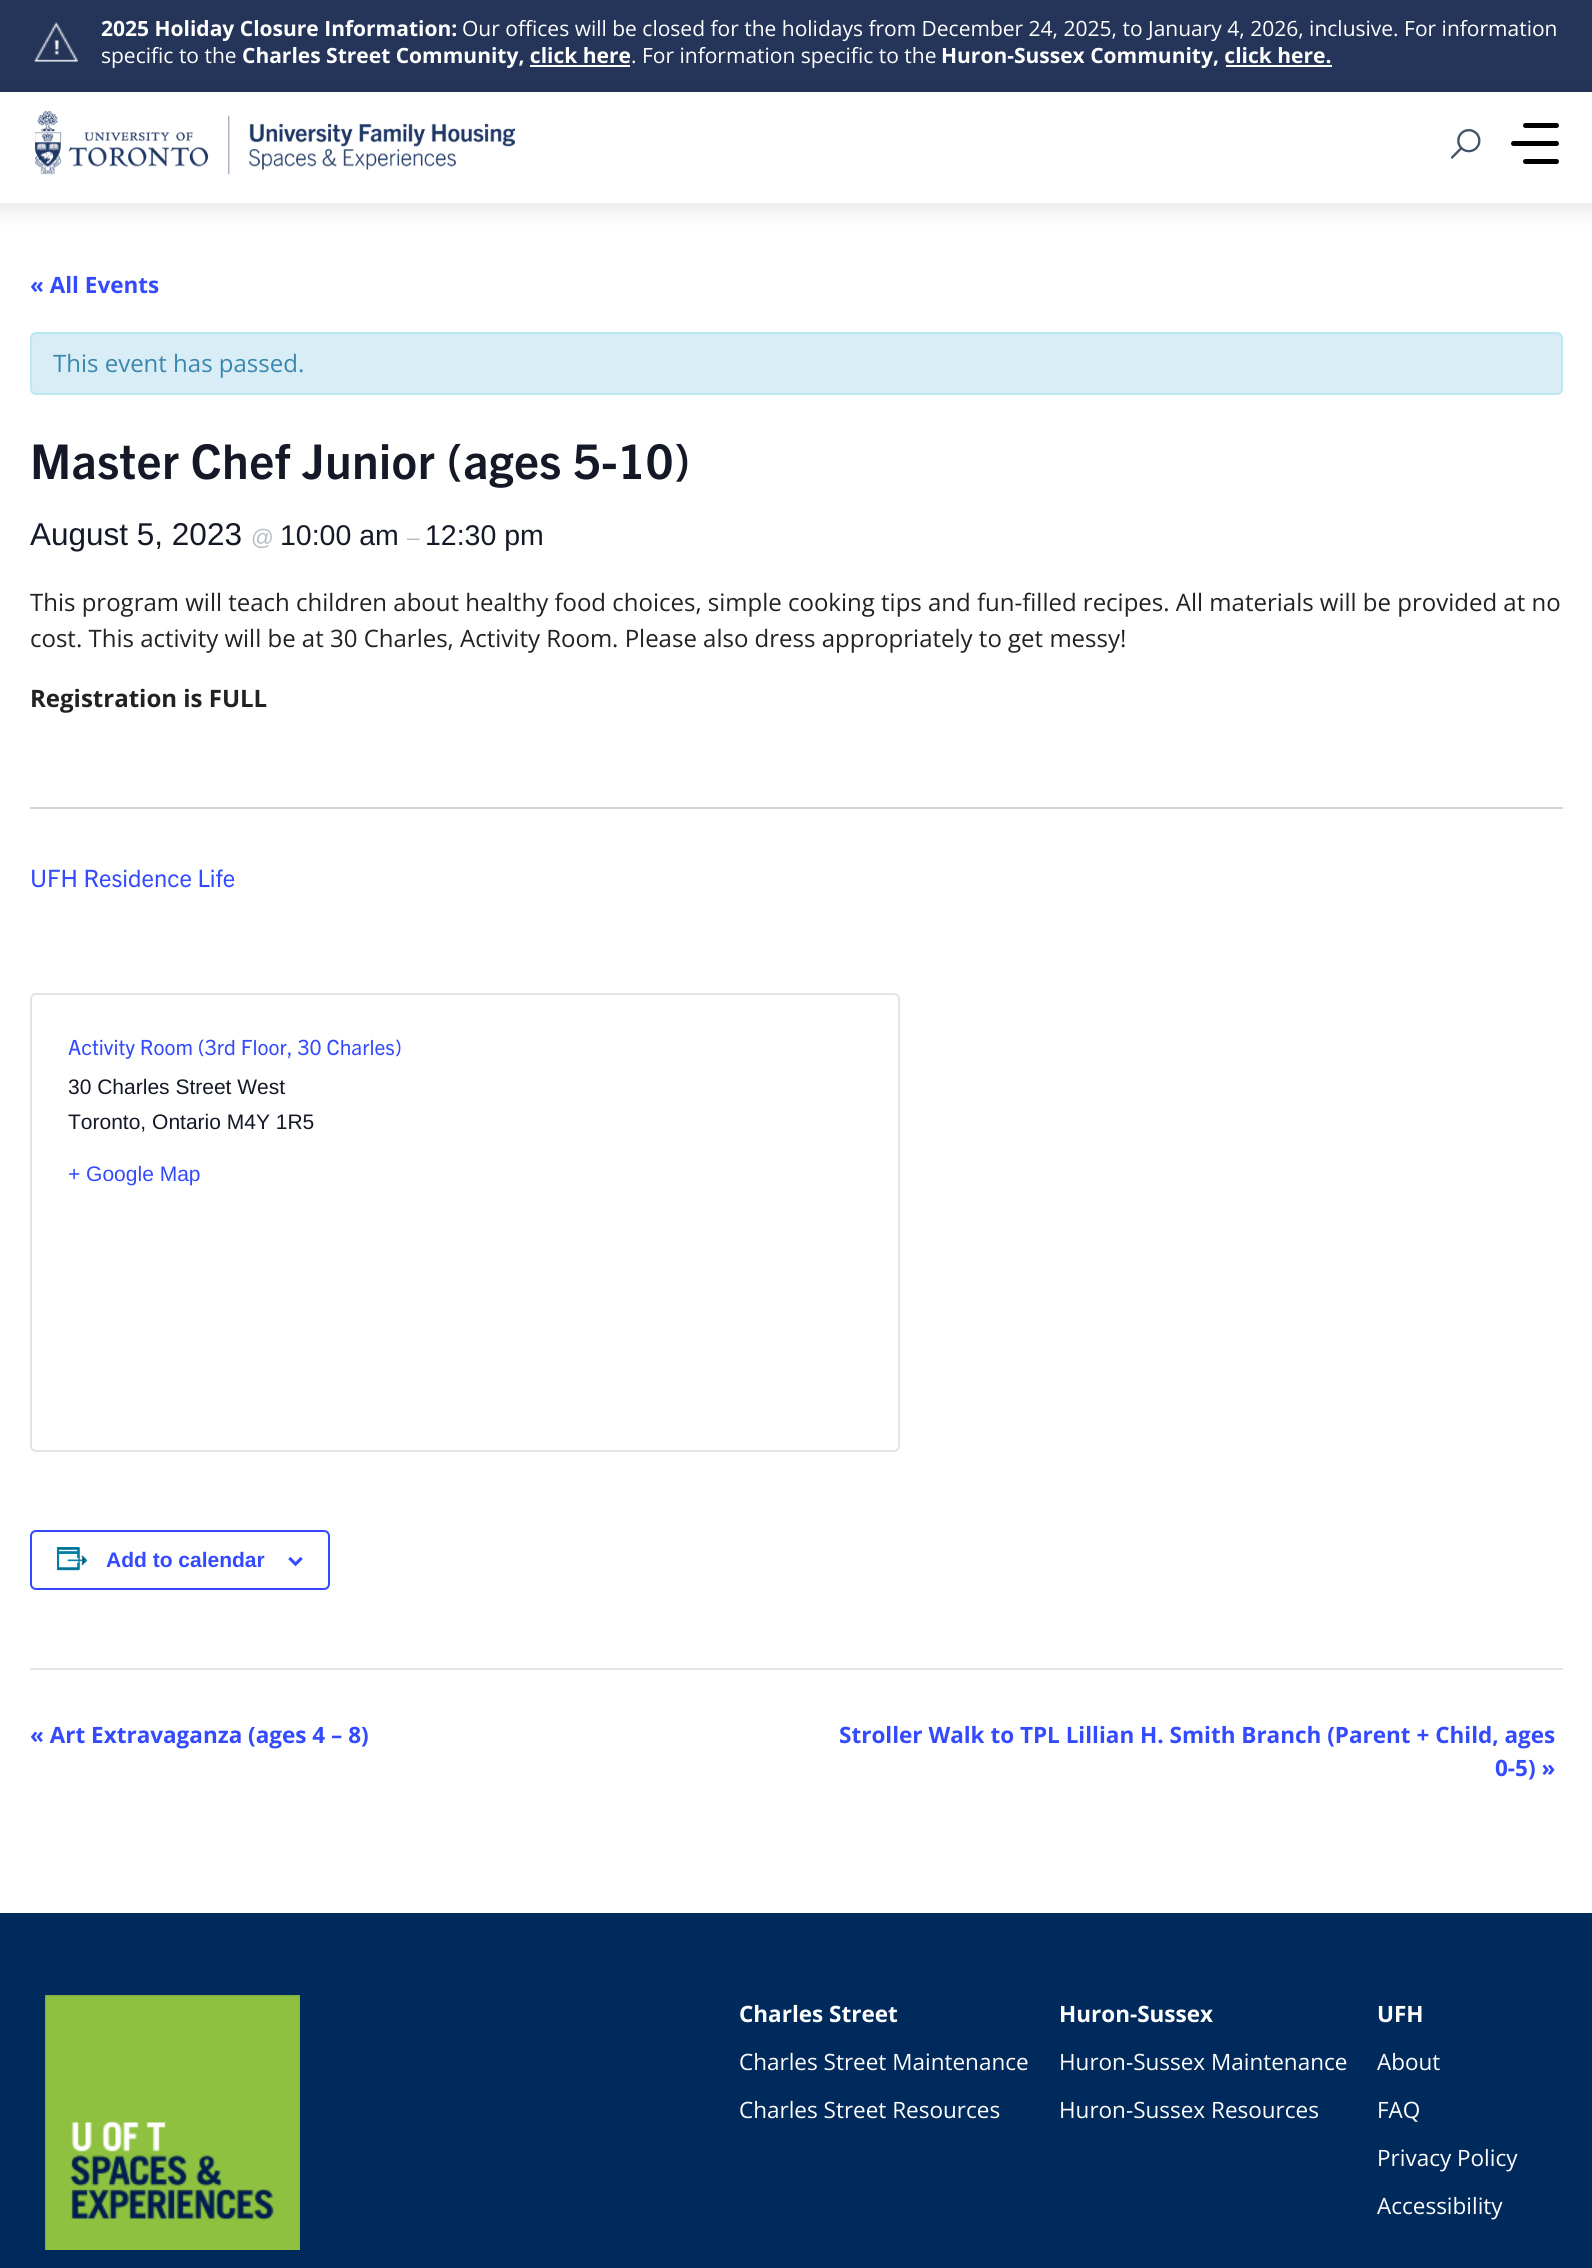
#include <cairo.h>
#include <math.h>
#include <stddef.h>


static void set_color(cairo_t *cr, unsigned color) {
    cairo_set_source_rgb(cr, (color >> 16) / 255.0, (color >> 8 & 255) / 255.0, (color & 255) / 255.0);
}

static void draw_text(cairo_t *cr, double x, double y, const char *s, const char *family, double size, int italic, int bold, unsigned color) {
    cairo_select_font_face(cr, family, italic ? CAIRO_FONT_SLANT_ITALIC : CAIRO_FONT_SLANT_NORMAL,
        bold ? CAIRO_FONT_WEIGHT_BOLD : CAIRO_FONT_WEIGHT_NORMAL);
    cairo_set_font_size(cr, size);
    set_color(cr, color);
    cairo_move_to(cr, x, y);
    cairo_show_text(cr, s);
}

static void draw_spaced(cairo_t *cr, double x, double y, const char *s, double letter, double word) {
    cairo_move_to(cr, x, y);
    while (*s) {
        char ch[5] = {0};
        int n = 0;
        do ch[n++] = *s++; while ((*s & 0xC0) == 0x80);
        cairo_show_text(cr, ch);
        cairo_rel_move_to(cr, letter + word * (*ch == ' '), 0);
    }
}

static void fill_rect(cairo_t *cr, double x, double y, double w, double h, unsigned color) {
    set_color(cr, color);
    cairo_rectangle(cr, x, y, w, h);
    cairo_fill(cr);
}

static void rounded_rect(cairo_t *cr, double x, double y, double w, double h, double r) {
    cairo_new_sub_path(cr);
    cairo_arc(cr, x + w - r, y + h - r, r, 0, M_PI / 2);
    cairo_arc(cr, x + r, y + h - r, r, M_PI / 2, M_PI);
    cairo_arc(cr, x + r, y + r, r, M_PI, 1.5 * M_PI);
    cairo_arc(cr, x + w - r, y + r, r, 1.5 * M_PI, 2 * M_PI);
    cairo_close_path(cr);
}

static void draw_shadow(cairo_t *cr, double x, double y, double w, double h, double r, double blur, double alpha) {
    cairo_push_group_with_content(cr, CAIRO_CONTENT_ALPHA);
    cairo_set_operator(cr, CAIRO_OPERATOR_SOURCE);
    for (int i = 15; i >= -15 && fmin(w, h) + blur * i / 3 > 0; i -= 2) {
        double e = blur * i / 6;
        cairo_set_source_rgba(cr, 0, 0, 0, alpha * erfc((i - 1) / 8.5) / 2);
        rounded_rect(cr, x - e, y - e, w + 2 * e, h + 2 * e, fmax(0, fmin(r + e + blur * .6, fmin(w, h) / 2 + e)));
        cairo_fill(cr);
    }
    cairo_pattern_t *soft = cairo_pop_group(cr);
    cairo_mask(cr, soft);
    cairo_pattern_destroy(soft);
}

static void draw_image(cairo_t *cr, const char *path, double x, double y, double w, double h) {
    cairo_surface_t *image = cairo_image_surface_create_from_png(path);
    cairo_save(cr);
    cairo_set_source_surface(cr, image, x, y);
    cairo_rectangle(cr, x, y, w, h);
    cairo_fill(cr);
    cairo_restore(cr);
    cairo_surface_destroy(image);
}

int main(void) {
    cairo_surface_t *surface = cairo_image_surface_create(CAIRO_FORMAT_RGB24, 1592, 2268);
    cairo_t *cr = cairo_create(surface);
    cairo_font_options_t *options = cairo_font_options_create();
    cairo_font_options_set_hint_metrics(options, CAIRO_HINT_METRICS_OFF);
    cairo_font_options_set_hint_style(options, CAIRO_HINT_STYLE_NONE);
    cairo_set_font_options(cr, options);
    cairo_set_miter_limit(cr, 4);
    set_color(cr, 0xFFFFFF);
    cairo_paint(cr);
    fill_rect(cr, 0, 0, 1592, 92, 0x25355A);
    draw_image(cr, "assets/img1.png", 34, 22, 44, 40);
    draw_text(cr, 101, 36, "2025 Holiday Closure Information:", "Open Sans", 21, 0, 1, 0xFFFFFF);
    draw_text(cr, 462, 36, "Our offices will be closed for the holidays from December 24, 2025, to January 4, 2026, inclusive. For information", "Open Sans", 21, 0, 0, 0xFFFFFF);
    draw_text(cr, 101, 63, "specific to the", "Open Sans", 21, 0, 0, 0xFFFFFF);
    draw_text(cr, 242, 63, "Charles Street Community, click here", "Open Sans", 21, 0, 1, 0xFFFFFF);
    fill_rect(cr, 530, 65, 100, 2, 0xFFFFFF);
    draw_text(cr, 631, 63, ". For information specific to the", "Open Sans", 21, 0, 0, 0xFFFFFF);
    draw_text(cr, 941, 63, "Huron-Sussex Community, click here.", "Open Sans", 21, 0, 1, 0xFFFFFF);
    fill_rect(cr, 1226, 65, 106, 2, 0xFFFFFF);
    set_color(cr, 0x000000);
    draw_shadow(cr, -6, 90, 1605, 123, 0, 9, 0.08);
    fill_rect(cr, 0, 92, 1592, 111, 0xFFFFFF);
    draw_image(cr, "assets/img2.png", 35, 111, 480, 64);
    draw_image(cr, "assets/img3.png", 1451, 129, 30, 30);
    set_color(cr, 0x000000);
    rounded_rect(cr, 1523, 123, 36, 5, 2.5);
    cairo_fill(cr);
    rounded_rect(cr, 1511, 141, 48, 5, 2.5);
    cairo_fill(cr);
    rounded_rect(cr, 1523, 159, 36, 5, 2.5);
    cairo_fill(cr);
    draw_text(cr, 30, 293, "« All Events", "Open Sans", 22.5, 0, 1, 0x334AFF);
    set_color(cr, 0xD9EDF7);
    rounded_rect(cr, 31, 333, 1531, 61, 5);
    cairo_fill_preserve(cr);
    set_color(cr, 0xBCE8F1);
    cairo_stroke(cr);
    draw_text(cr, 53, 372, "This event has passed.", "Open Sans", 24, 0, 0, 0x3A87AD);
    cairo_select_font_face(cr, "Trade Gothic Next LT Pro", CAIRO_FONT_SLANT_NORMAL, CAIRO_FONT_WEIGHT_BOLD);
    cairo_set_font_size(cr, 48);
    set_color(cr, 0x141827);
    draw_spaced(cr, 30, 479, "Master Chef Junior (ages 5-10)", 0.45, 0);
    draw_text(cr, 30, 545, "August 5, 2023", "Liberation Sans", 31.5, 0, 0, 0x141827);
    draw_text(cr, 251, 545, "@", "Liberation Sans", 22.5, 0, 0, 0xB9BEC2);
    draw_text(cr, 280, 545, "10:00 am", "Liberation Sans", 28.5, 0, 0, 0x141827);
    draw_text(cr, 407, 545, "–", "Liberation Sans", 22.5, 0, 0, 0xB9BEC2);
    draw_text(cr, 425, 545, "12:30 pm", "Liberation Sans", 28.5, 0, 0, 0x141827);
    draw_text(cr, 30, 611, "This program will teach children about healthy food choices, simple cooking tips and fun-filled recipes. All materials will be provided at no", "Open Sans", 24, 0, 0, 0x222222);
    draw_text(cr, 30, 647, "cost. This activity will be at 30 Charles, Activity Room. Please also dress appropriately to get messy!", "Open Sans", 24, 0, 0, 0x222222);
    draw_text(cr, 30, 707, "Registration is FULL", "Open Sans", 24, 0, 1, 0x222222);
    fill_rect(cr, 30, 807, 1533, 2, 0xD5D5D5);
    draw_text(cr, 30, 887, "UFH Residence Life", "Trade Gothic Next LT Pro", 24, 0, 0, 0x334AFF);
    rounded_rect(cr, 31, 994, 868, 457, 5);
    set_color(cr, 0xE4E4E4);
    cairo_stroke(cr);
    draw_text(cr, 68, 1055, "Activity Room (3rd Floor, 30 Charles)", "Trade Gothic Next LT Pro", 21, 0, 0, 0x334AFF);
    draw_text(cr, 68, 1094, "30 Charles Street West", "Liberation Sans", 21, 0, 0, 0x141827);
    draw_text(cr, 68, 1129, "Toronto, Ontario M4Y 1R5", "Liberation Sans", 21, 0, 0, 0x141827);
    draw_text(cr, 68, 1181, "+ Google Map", "Liberation Sans", 21, 0, 0, 0x334AFF);
    rounded_rect(cr, 31, 1531, 298, 58, 5);
    cairo_stroke(cr);
    draw_image(cr, "assets/img4.png", 57, 1547, 31, 24);
    draw_text(cr, 106, 1567, "Add to calendar", "Liberation Sans", 21, 0, 1, 0x334AFF);
    draw_image(cr, "assets/img5.png", 288, 1557, 15, 9);
    fill_rect(cr, 30, 1668, 1533, 2, 0xE5E5E5);
    draw_text(cr, 30, 1743, "« Art Extravaganza (ages 4 – 8)", "Open Sans", 22.5, 0, 1, 0x334AFF);
    draw_text(cr, 839, 1743, "Stroller Walk to TPL Lillian H. Smith Branch (Parent + Child, ages", "Open Sans", 22.5, 0, 1, 0x334AFF);
    draw_text(cr, 1495, 1776, "0-5) »", "Open Sans", 22.5, 0, 1, 0x334AFF);
    fill_rect(cr, 0, 1913, 1592, 355, 0x002A5C);
    draw_image(cr, "assets/img6.png", 45, 1995, 255, 255);
    draw_text(cr, 739, 2022, "Charles Street", "Open Sans", 22.5, 0, 1, 0xFFFFFF);
    draw_text(cr, 739, 2070, "Charles Street Maintenance", "Open Sans", 22.5, 0, 0, 0xFFFFFF);
    draw_text(cr, 739, 2118, "Charles Street Resources", "Open Sans", 22.5, 0, 0, 0xFFFFFF);
    draw_text(cr, 1059, 2022, "Huron-Sussex", "Open Sans", 22.5, 0, 1, 0xFFFFFF);
    draw_text(cr, 1059, 2070, "Huron-Sussex Maintenance", "Open Sans", 22.5, 0, 0, 0xFFFFFF);
    draw_text(cr, 1059, 2118, "Huron-Sussex Resources", "Open Sans", 22.5, 0, 0, 0xFFFFFF);
    draw_text(cr, 1377, 2022, "UFH", "Open Sans", 22.5, 0, 1, 0xFFFFFF);
    draw_text(cr, 1377, 2070, "About", "Open Sans", 22.5, 0, 0, 0xFFFFFF);
    draw_text(cr, 1377, 2118, "FAQ", "Open Sans", 22.5, 0, 0, 0xFFFFFF);
    draw_text(cr, 1377, 2166, "Privacy Policy", "Open Sans", 22.5, 0, 0, 0xFFFFFF);
    draw_text(cr, 1377, 2214, "Accessibility", "Open Sans", 22.5, 0, 0, 0xFFFFFF);
    cairo_surface_write_to_png(surface, "output.png");
    cairo_font_options_destroy(options);
    cairo_destroy(cr);
    cairo_surface_destroy(surface);
    return 0;
}
